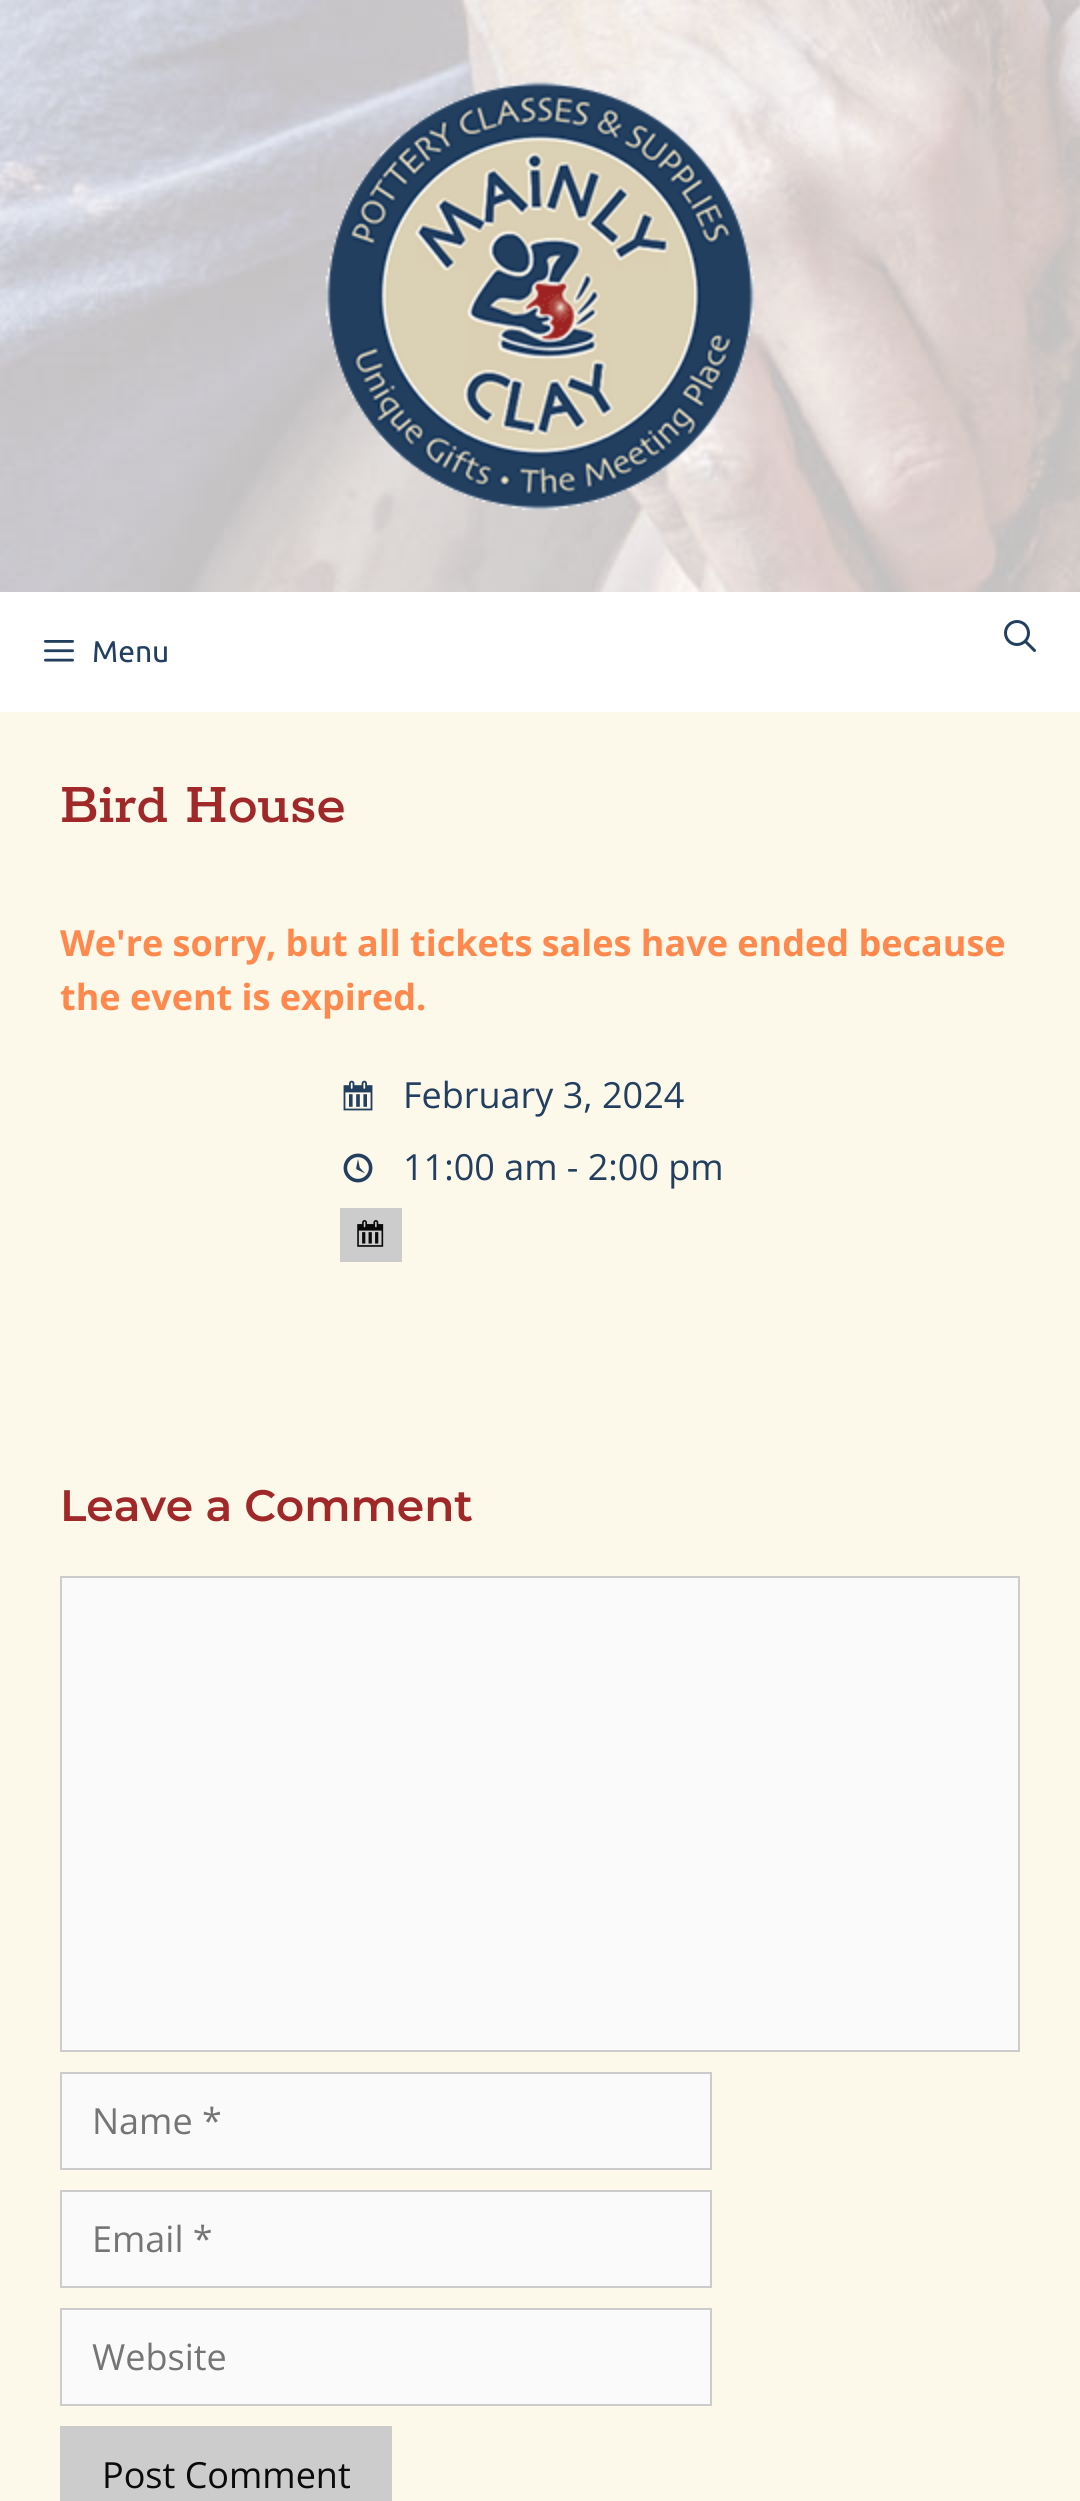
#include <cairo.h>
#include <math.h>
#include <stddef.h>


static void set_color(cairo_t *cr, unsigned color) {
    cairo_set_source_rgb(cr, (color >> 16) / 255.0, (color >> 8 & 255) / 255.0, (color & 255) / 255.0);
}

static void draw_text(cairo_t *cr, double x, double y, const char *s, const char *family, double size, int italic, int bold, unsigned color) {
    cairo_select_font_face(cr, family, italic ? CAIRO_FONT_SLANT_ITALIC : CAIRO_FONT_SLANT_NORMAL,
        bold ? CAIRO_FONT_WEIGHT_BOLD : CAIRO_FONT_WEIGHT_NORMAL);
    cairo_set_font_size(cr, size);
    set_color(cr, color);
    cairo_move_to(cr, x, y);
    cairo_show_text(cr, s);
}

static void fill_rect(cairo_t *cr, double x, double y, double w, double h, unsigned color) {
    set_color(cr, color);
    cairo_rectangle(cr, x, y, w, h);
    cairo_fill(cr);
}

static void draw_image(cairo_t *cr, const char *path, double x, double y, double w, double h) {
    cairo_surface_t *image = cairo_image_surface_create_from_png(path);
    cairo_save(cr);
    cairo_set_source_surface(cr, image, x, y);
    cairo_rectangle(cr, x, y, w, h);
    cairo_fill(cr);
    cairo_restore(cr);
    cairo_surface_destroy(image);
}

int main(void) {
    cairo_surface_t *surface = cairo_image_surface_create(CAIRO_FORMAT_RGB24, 1080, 2501);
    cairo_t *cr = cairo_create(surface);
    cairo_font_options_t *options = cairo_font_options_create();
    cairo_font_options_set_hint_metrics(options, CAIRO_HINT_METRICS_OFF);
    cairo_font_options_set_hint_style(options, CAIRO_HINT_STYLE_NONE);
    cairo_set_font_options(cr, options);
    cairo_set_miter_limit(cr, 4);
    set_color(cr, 0xFCF8EA);
    cairo_paint(cr);
    draw_image(cr, "assets/img1.png", 0, 0, 1080, 592);
    draw_image(cr, "assets/img2.png", 325, 81, 430, 430);
    fill_rect(cr, 0, 592, 1080, 120, 0xFFFFFF);
    draw_image(cr, "assets/img3.png", 44, 640, 30, 22);
    draw_text(cr, 92, 662, "Menu", "Ubuntu", 30, 0, 0, 0x223F60);
    draw_image(cr, "assets/img4.png", 1004, 620, 32, 32);
    draw_text(cr, 60, 822, "Bird House", "Rokkitt Medium", 60, 0, 0, 0xA12829);
    draw_text(cr, 60, 956, "We're sorry, but all tickets sales have ended because", "Open Sans", 36, 0, 1, 0xFF884D);
    draw_text(cr, 60, 1010, "the event is expired.", "Open Sans", 36, 0, 1, 0xFF884D);
    draw_image(cr, "assets/img5.png", 343, 1080, 30, 31);
    draw_text(cr, 403, 1108, "February 3, 2024", "Open Sans", 36, 0, 0, 0x223F60);
    draw_image(cr, "assets/img6.png", 343, 1153, 30, 30);
    draw_text(cr, 403, 1180, "11:00 am - 2:00 pm", "Open Sans", 36, 0, 0, 0x223F60);
    fill_rect(cr, 340, 1208, 62, 54, 0xCCCCCC);
    draw_image(cr, "assets/img7.png", 357, 1220, 27, 27);
    draw_text(cr, 60, 1521, "Leave a Comment", "Montserrat SemiBold", 44, 0, 0, 0xA12829);
    set_color(cr, 0xFAFAFA);
    cairo_rectangle(cr, 61, 1577, 958, 474);
    cairo_fill_preserve(cr);
    set_color(cr, 0xCCCCCC);
    cairo_stroke(cr);
    set_color(cr, 0xFAFAFA);
    cairo_rectangle(cr, 61, 2073, 650, 96);
    cairo_fill_preserve(cr);
    set_color(cr, 0xCCCCCC);
    cairo_stroke(cr);
    draw_text(cr, 92, 2134, "Name *", "Open Sans", 36, 0, 0, 0x757575);
    set_color(cr, 0xFAFAFA);
    cairo_rectangle(cr, 61, 2191, 650, 96);
    cairo_fill_preserve(cr);
    set_color(cr, 0xCCCCCC);
    cairo_stroke(cr);
    draw_text(cr, 92, 2252, "Email *", "Open Sans", 36, 0, 0, 0x757575);
    set_color(cr, 0xFAFAFA);
    cairo_rectangle(cr, 61, 2309, 650, 96);
    cairo_fill_preserve(cr);
    set_color(cr, 0xCCCCCC);
    cairo_stroke(cr);
    draw_text(cr, 92, 2370, "Website", "Open Sans", 36, 0, 0, 0x757575);
    fill_rect(cr, 60, 2426, 332, 75, 0xCCCCCC);
    draw_text(cr, 102, 2488, "Post Comment", "Open Sans", 36, 0, 0, 0x0A0A0A);
    cairo_surface_write_to_png(surface, "output.png");
    cairo_font_options_destroy(options);
    cairo_destroy(cr);
    cairo_surface_destroy(surface);
    return 0;
}
